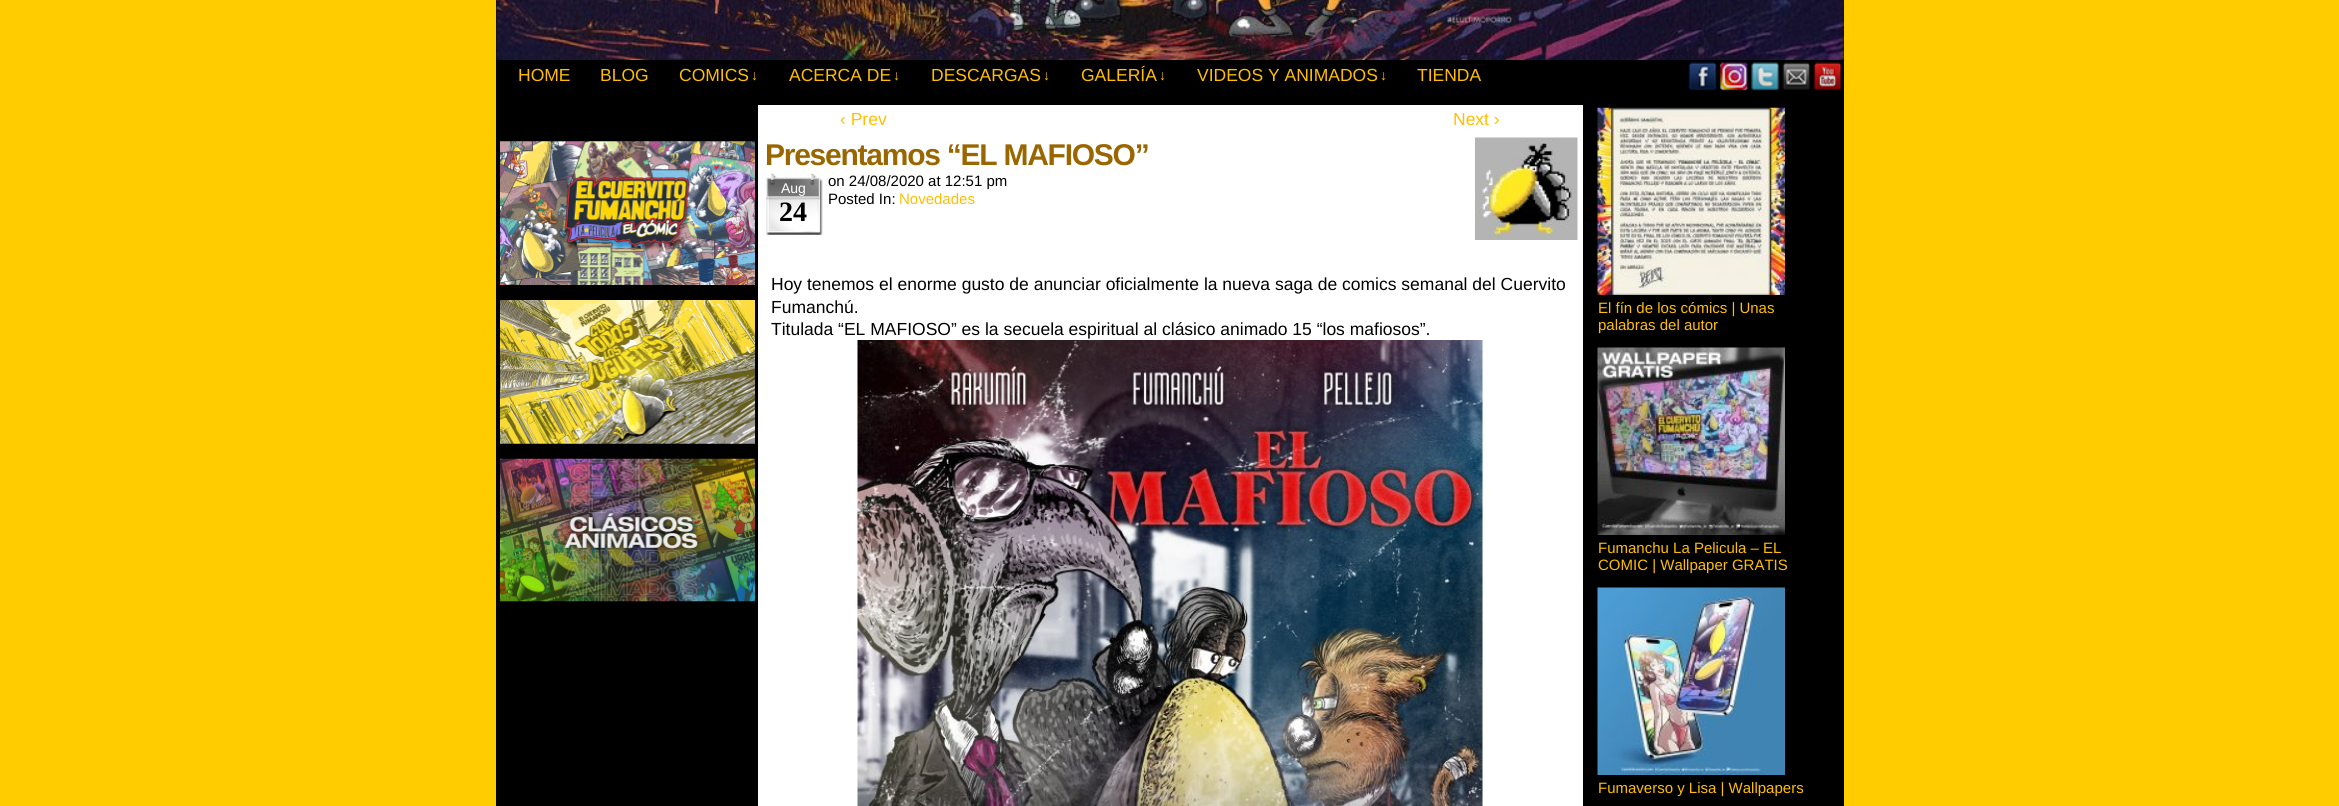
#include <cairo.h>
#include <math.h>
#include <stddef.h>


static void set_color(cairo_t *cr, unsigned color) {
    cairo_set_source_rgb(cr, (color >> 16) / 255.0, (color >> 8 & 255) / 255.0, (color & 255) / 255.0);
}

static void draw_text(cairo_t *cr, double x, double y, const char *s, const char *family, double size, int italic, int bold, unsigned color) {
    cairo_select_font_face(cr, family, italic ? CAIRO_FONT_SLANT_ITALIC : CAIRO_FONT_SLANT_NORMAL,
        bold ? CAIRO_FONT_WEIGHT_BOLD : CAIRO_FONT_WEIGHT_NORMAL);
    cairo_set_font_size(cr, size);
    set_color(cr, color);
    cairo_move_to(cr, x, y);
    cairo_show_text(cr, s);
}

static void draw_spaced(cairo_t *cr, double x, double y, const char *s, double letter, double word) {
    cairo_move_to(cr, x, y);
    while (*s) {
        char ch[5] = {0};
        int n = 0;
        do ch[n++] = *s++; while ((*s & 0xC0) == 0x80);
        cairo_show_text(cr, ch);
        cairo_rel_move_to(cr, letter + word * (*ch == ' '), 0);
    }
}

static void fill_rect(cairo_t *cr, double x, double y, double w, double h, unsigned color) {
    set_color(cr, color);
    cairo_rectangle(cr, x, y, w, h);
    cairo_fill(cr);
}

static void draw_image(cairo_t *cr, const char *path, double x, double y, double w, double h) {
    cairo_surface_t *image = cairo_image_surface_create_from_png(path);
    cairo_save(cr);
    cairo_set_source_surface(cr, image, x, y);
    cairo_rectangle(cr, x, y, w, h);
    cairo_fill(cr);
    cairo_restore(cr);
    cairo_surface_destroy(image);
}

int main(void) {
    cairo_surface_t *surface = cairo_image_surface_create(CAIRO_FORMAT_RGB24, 2339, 806);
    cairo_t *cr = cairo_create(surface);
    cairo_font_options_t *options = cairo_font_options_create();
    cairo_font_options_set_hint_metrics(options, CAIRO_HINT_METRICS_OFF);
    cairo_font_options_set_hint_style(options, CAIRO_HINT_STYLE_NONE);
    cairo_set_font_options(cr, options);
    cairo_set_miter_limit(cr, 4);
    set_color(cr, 0xFFCC00);
    cairo_paint(cr);
    fill_rect(cr, 496, 0, 1348, 806, 0x000000);
    draw_image(cr, "assets/img1.png", 496, 0, 1348, 60);
    draw_text(cr, 518, 81, "HOME", "Liberation Sans", 17.5, 0, 0, 0xFFBF00);
    draw_text(cr, 600, 81, "BLOG", "Liberation Sans", 17.5, 0, 0, 0xFFBF00);
    draw_text(cr, 679, 81, "COMICS", "Liberation Sans", 17.5, 0, 0, 0xFFBF00);
    draw_text(cr, 751, 80, "↓", "Liberation Sans", 14, 0, 0, 0xFFBF00);
    draw_text(cr, 789, 81, "ACERCA DE", "Liberation Sans", 17.5, 0, 0, 0xFFBF00);
    draw_text(cr, 893, 80, "↓", "Liberation Sans", 14, 0, 0, 0xFFBF00);
    draw_text(cr, 931, 81, "DESCARGAS", "Liberation Sans", 17.5, 0, 0, 0xFFBF00);
    draw_text(cr, 1043, 80, "↓", "Liberation Sans", 14, 0, 0, 0xFFBF00);
    draw_text(cr, 1081, 81, "GALERÍA", "Liberation Sans", 17.5, 0, 0, 0xFFBF00);
    draw_text(cr, 1159, 80, "↓", "Liberation Sans", 14, 0, 0, 0xFFBF00);
    draw_text(cr, 1197, 81, "VIDEOS Y ANIMADOS", "Liberation Sans", 17.5, 0, 0, 0xFFBF00);
    draw_text(cr, 1380, 80, "↓", "Liberation Sans", 14, 0, 0, 0xFFBF00);
    draw_text(cr, 1417, 81, "TIENDA", "Liberation Sans", 17.5, 0, 0, 0xFFBF00);
    draw_image(cr, "assets/img2.png", 1688, 62, 29, 29);
    draw_image(cr, "assets/img3.png", 1719, 62, 29, 29);
    draw_image(cr, "assets/img4.png", 1751, 62, 28, 29);
    draw_image(cr, "assets/img5.png", 1782, 62, 29, 28);
    draw_image(cr, "assets/img6.png", 1813, 62, 29, 29);
    draw_image(cr, "assets/img7.png", 500, 141, 255, 144);
    draw_image(cr, "assets/img8.png", 500, 300, 255, 144);
    draw_image(cr, "assets/img9.png", 500, 458, 255, 144);
    fill_rect(cr, 758, 105, 825, 701, 0xFFFFFF);
    draw_text(cr, 840, 125, "‹ Prev", "Liberation Sans", 17.5, 0, 0, 0xFFBF00);
    draw_text(cr, 1453, 125, "Next ›", "Liberation Sans", 17.5, 0, 0, 0xFFBF00);
    cairo_select_font_face(cr, "Liberation Sans", CAIRO_FONT_SLANT_NORMAL, CAIRO_FONT_WEIGHT_BOLD);
    cairo_set_font_size(cr, 30);
    set_color(cr, 0x996600);
    draw_spaced(cr, 765, 165, "Presentamos “EL MAFIOSO”", -1.25, 0);
    draw_image(cr, "assets/img10.png", 766, 173, 57, 62);
    draw_text(cr, 781, 193, "Aug", "Liberation Sans", 14, 0, 0, 0xFFFFFF);
    draw_text(cr, 779, 221, "24", "Liberation Serif", 28, 0, 1, 0x000000);
    draw_text(cr, 828, 186, "on 24/08/2020 at 12:51 pm", "Liberation Sans", 15, 0, 0, 0x000000);
    draw_text(cr, 828, 204, "Posted In:", "Liberation Sans", 15, 0, 0, 0x000000);
    draw_text(cr, 899, 204, "Novedades", "Liberation Sans", 15, 0, 0, 0xFFBF00);
    draw_image(cr, "assets/img11.png", 1475, 137, 103, 103);
    draw_text(cr, 771, 290, "Hoy tenemos el enorme gusto de anunciar oficialmente la nueva saga de comics semanal del Cuervito", "Liberation Sans", 17.5, 0, 0, 0x000000);
    draw_text(cr, 771, 313, "Fumanchú.", "Liberation Sans", 17.5, 0, 0, 0x000000);
    draw_text(cr, 771, 335, "Titulada “EL MAFIOSO” es la secuela espiritual al clásico animado 15 “los mafiosos”.", "Liberation Sans", 17.5, 0, 0, 0x000000);
    draw_image(cr, "assets/img12.png", 857, 340, 626, 466);
    draw_image(cr, "assets/img13.png", 1597, 107, 188, 188);
    draw_text(cr, 1598, 313, "El fín de los cómics | Unas", "Liberation Sans", 15, 0, 0, 0xFFBF00);
    draw_text(cr, 1598, 330, "palabras del autor", "Liberation Sans", 15, 0, 0, 0xFFBF00);
    draw_image(cr, "assets/img14.png", 1597, 347, 188, 188);
    draw_text(cr, 1598, 553, "Fumanchu La Pelicula – EL", "Liberation Sans", 15, 0, 0, 0xFFBF00);
    draw_text(cr, 1598, 570, "COMIC | Wallpaper GRATIS", "Liberation Sans", 15, 0, 0, 0xFFBF00);
    draw_image(cr, "assets/img15.png", 1597, 587, 188, 188);
    draw_text(cr, 1598, 793, "Fumaverso y Lisa | Wallpapers", "Liberation Sans", 15, 0, 0, 0xFFBF00);
    cairo_surface_write_to_png(surface, "output.png");
    cairo_font_options_destroy(options);
    cairo_destroy(cr);
    cairo_surface_destroy(surface);
    return 0;
}
